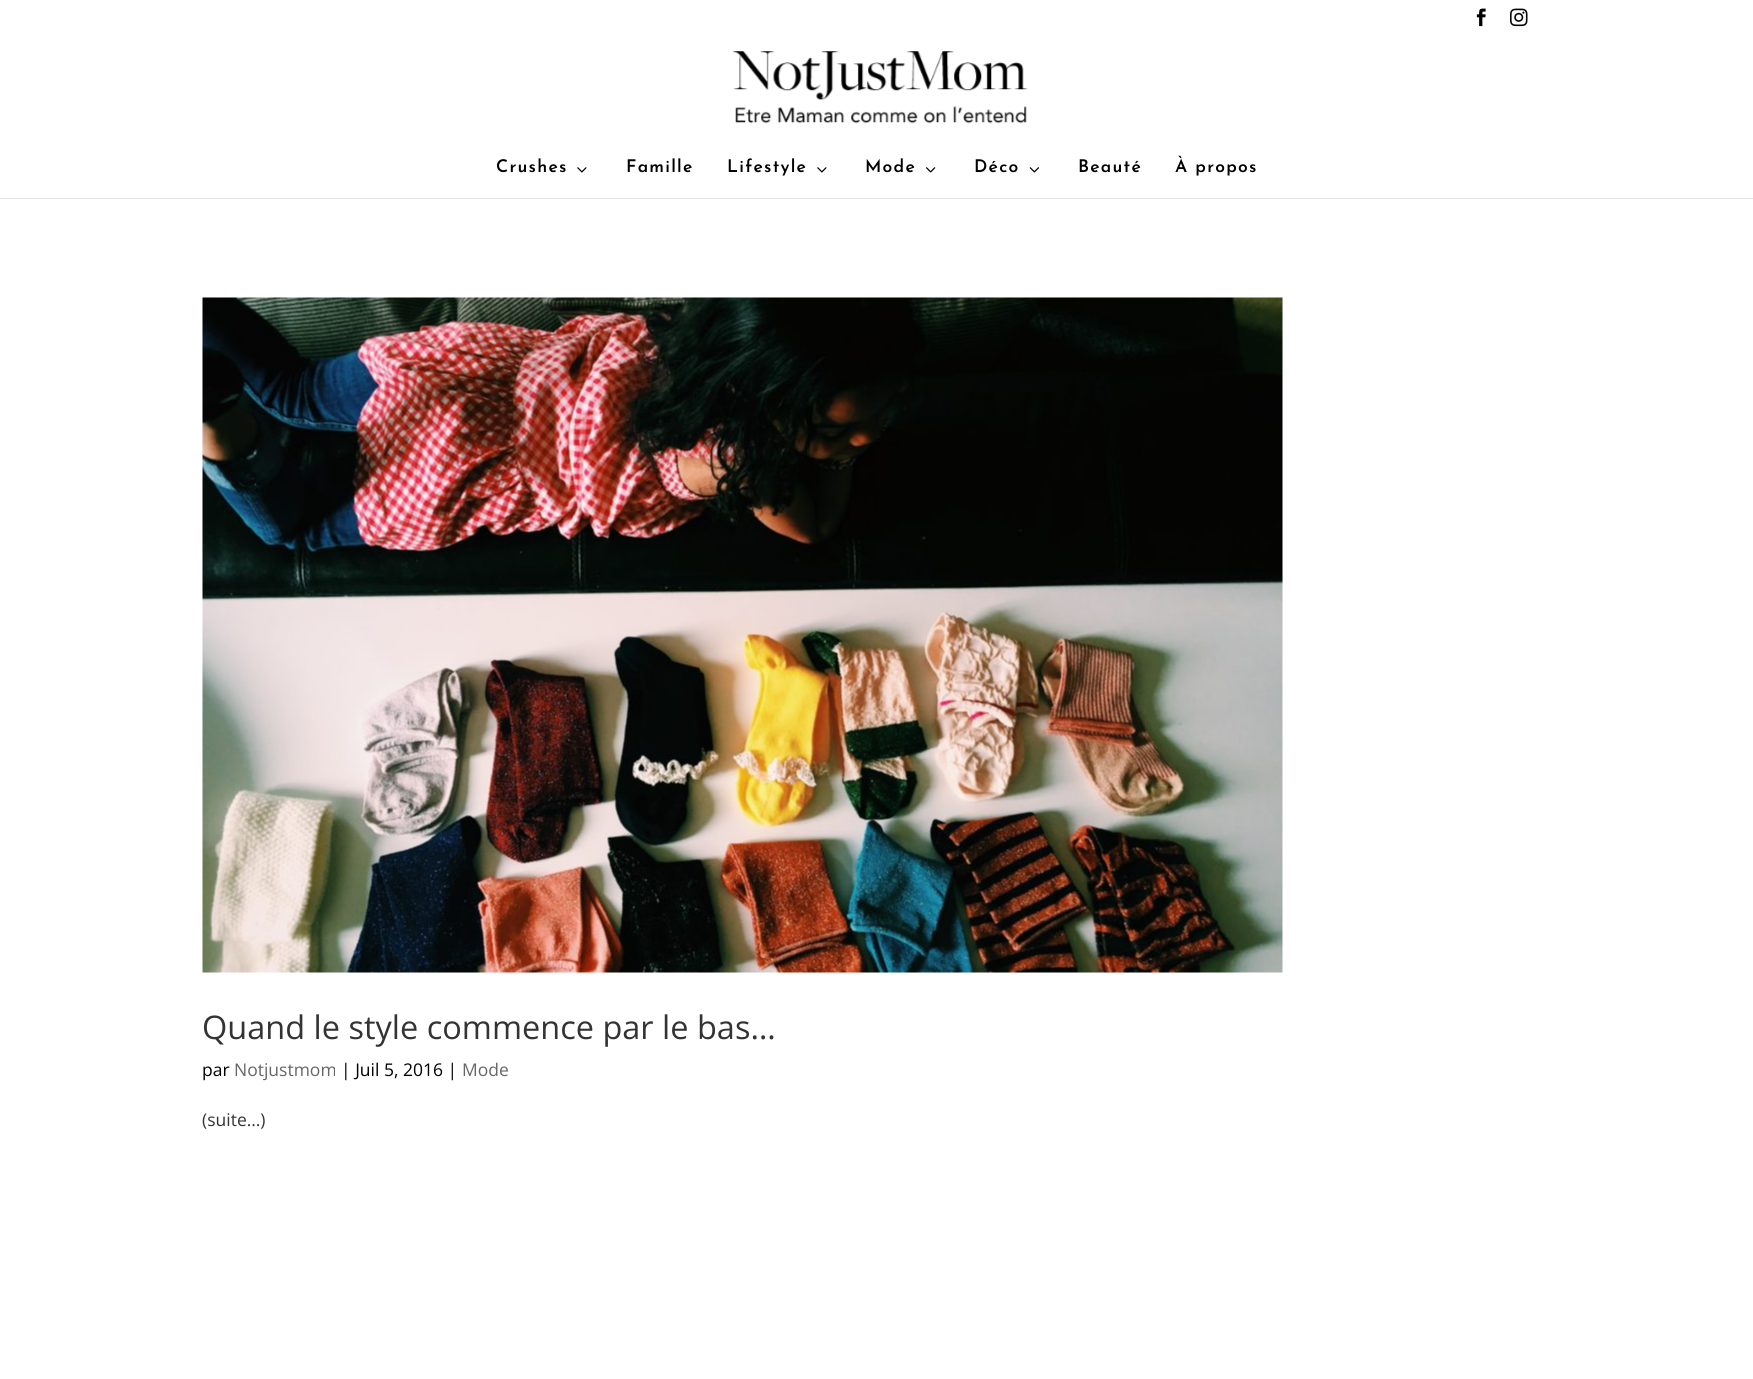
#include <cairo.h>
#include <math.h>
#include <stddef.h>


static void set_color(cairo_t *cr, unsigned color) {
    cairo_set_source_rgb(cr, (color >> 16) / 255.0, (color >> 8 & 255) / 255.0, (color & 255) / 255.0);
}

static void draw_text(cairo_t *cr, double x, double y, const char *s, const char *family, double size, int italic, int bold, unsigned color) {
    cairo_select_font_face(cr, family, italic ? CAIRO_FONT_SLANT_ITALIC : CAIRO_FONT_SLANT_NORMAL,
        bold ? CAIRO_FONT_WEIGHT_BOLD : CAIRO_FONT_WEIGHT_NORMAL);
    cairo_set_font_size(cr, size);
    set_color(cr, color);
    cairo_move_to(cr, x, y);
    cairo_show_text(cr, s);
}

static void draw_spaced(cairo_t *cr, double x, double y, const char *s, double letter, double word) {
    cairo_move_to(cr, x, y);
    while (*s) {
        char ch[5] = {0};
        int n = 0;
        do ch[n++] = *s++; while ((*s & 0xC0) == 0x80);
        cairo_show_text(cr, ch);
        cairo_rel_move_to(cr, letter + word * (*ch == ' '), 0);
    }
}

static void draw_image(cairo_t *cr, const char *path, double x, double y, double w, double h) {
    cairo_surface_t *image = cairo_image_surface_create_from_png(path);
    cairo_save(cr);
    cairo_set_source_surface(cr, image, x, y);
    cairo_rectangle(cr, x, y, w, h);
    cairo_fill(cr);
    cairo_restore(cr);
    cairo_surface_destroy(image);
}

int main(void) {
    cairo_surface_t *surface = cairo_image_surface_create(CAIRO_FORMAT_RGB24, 1753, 1379);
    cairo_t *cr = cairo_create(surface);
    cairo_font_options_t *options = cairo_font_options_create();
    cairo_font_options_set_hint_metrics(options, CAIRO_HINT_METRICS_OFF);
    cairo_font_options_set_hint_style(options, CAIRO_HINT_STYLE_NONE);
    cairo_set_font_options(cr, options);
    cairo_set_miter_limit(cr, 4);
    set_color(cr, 0xFFFFFF);
    cairo_paint(cr);
    draw_image(cr, "assets/img1.png", 1476, 8, 10, 19);
    draw_image(cr, "assets/img2.png", 1510, 8, 18, 19);
    set_color(cr, 0xE6E6E6);
    cairo_new_path(cr);
    cairo_move_to(cr, 0, 198);
    cairo_line_to(cr, 0, 199);
    cairo_line_to(cr, 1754, 199);
    cairo_line_to(cr, 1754, 43);
    cairo_line_to(cr, 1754, 198);
    cairo_close_path(cr);
    cairo_fill(cr);
    draw_image(cr, "assets/img3.png", 732, 51, 296, 73);
    cairo_select_font_face(cr, "Josefin Sans Thin", CAIRO_FONT_SLANT_NORMAL, CAIRO_FONT_WEIGHT_NORMAL);
    cairo_set_font_size(cr, 17.5);
    set_color(cr, 0x000000);
    draw_spaced(cr, 496, 172, "Crushes", 1.25, 0);
    draw_image(cr, "assets/img4.png", 577, 167, 10, 6);
    draw_spaced(cr, 626, 172, "Famille", 1.25, 0);
    draw_spaced(cr, 727, 172, "Lifestyle", 1.25, 0);
    draw_image(cr, "assets/img4.png", 817, 167, 10, 6);
    draw_spaced(cr, 865, 172, "Mode", 1.25, 0);
    draw_image(cr, "assets/img5.png", 926, 167, 10, 6);
    draw_spaced(cr, 974, 172, "Déco", 1.25, 0);
    draw_image(cr, "assets/img6.png", 1029, 167, 10, 6);
    draw_spaced(cr, 1078, 172, "Beauté", 1.25, 0);
    draw_spaced(cr, 1175, 172, "À propos", 1.25, 0);
    draw_image(cr, "assets/img7.png", 202, 297, 1081, 676);
    draw_text(cr, 202, 1039, "Quand le style commence par le bas…", "Open Sans", 32.5, 0, 0, 0x333333);
    draw_text(cr, 202, 1076, "par", "Open Sans", 17.5, 0, 0, 0x000000);
    draw_text(cr, 234, 1076, "Notjustmom", "Open Sans", 17.5, 0, 0, 0x666666);
    draw_text(cr, 341, 1076, "| Juil 5, 2016 |", "Open Sans", 17.5, 0, 0, 0x000000);
    draw_text(cr, 462, 1076, "Mode", "Open Sans", 17.5, 0, 0, 0x666666);
    draw_text(cr, 202, 1126, "(suite…)", "Open Sans", 17.5, 0, 0, 0x333333);
    cairo_surface_write_to_png(surface, "output.png");
    cairo_font_options_destroy(options);
    cairo_destroy(cr);
    cairo_surface_destroy(surface);
    return 0;
}
